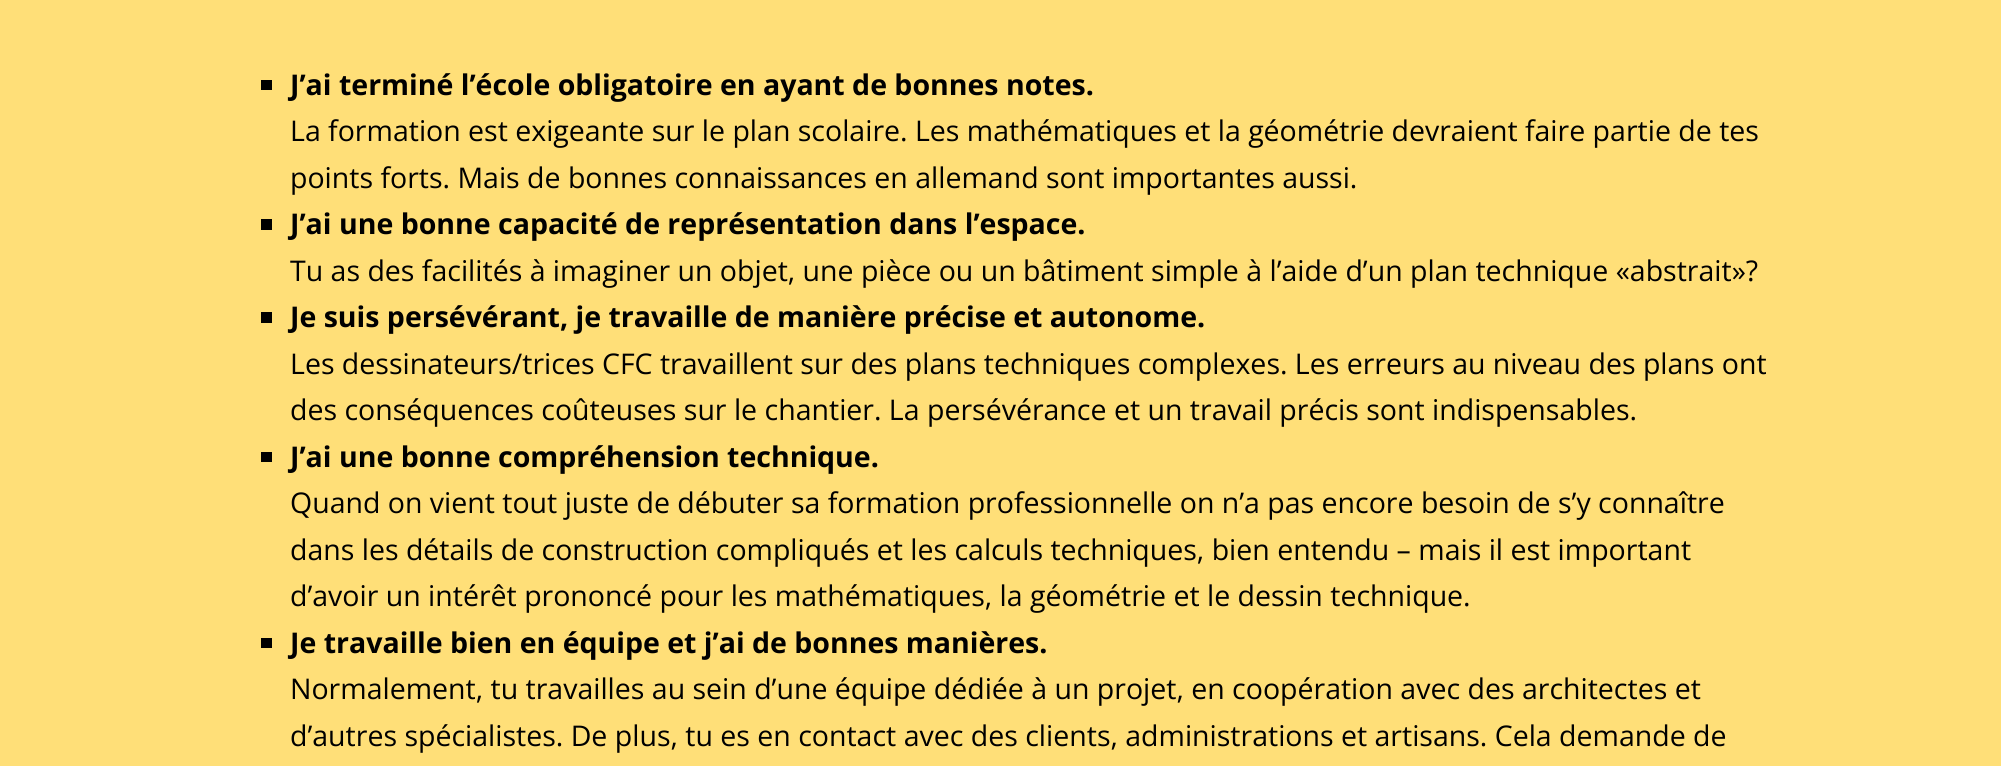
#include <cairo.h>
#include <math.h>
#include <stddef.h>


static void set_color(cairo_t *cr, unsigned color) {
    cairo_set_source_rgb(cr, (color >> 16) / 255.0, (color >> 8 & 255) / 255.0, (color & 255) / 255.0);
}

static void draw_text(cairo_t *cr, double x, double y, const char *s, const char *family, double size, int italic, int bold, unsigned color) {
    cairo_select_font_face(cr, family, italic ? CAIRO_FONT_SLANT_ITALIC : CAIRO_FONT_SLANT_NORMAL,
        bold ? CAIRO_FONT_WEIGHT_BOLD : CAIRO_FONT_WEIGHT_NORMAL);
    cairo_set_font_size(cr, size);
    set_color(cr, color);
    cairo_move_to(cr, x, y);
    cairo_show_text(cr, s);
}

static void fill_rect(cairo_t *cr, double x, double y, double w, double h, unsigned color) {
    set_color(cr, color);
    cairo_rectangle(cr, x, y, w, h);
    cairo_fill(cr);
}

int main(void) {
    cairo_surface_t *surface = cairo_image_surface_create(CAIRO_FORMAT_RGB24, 2001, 766);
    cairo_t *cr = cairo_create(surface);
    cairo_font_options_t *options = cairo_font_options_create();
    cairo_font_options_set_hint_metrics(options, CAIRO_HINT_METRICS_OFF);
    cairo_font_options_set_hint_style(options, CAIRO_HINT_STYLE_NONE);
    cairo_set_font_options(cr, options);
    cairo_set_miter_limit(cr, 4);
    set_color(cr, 0xFFDF78);
    cairo_paint(cr);
    fill_rect(cr, 261, 80, 11, 10, 0x000000);
    draw_text(cr, 290, 95, "J’ai terminé l’école obligatoire en ayant de bonnes notes.", "Open Sans", 28.5, 0, 1, 0x000000);
    draw_text(cr, 290, 141, "La formation est exigeante sur le plan scolaire. Les mathématiques et la géométrie devraient faire partie de tes", "Open Sans", 28.5, 0, 0, 0x000000);
    draw_text(cr, 290, 188, "points forts. Mais de bonnes connaissances en allemand sont importantes aussi.", "Open Sans", 28.5, 0, 0, 0x000000);
    fill_rect(cr, 261, 219, 11, 11, 0x000000);
    draw_text(cr, 290, 234, "J’ai une bonne capacité de représentation dans l’espace.", "Open Sans", 28.5, 0, 1, 0x000000);
    draw_text(cr, 290, 281, "Tu as des facilités à imaginer un objet, une pièce ou un bâtiment simple à l’aide d’un plan technique «abstrait»?", "Open Sans", 28.5, 0, 0, 0x000000);
    fill_rect(cr, 261, 312, 11, 11, 0x000000);
    draw_text(cr, 290, 327, "Je suis persévérant, je travaille de manière précise et autonome.", "Open Sans", 28.5, 0, 1, 0x000000);
    draw_text(cr, 290, 374, "Les dessinateurs/trices CFC travaillent sur des plans techniques complexes. Les erreurs au niveau des plans ont", "Open Sans", 28.5, 0, 0, 0x000000);
    draw_text(cr, 290, 420, "des conséquences coûteuses sur le chantier. La persévérance et un travail précis sont indispensables.", "Open Sans", 28.5, 0, 0, 0x000000);
    fill_rect(cr, 261, 452, 11, 10, 0x000000);
    draw_text(cr, 290, 467, "J’ai une bonne compréhension technique.", "Open Sans", 28.5, 0, 1, 0x000000);
    draw_text(cr, 290, 513, "Quand on vient tout juste de débuter sa formation professionnelle on n’a pas encore besoin de s’y connaître", "Open Sans", 28.5, 0, 0, 0x000000);
    draw_text(cr, 290, 560, "dans les détails de construction compliqués et les calculs techniques, bien entendu – mais il est important", "Open Sans", 28.5, 0, 0, 0x000000);
    draw_text(cr, 290, 606, "d’avoir un intérêt prononcé pour les mathématiques, la géométrie et le dessin technique.", "Open Sans", 28.5, 0, 0, 0x000000);
    fill_rect(cr, 261, 638, 11, 10, 0x000000);
    draw_text(cr, 290, 653, "Je travaille bien en équipe et j’ai de bonnes manières.", "Open Sans", 28.5, 0, 1, 0x000000);
    draw_text(cr, 290, 699, "Normalement, tu travailles au sein d’une équipe dédiée à un projet, en coopération avec des architectes et", "Open Sans", 28.5, 0, 0, 0x000000);
    draw_text(cr, 290, 746, "d’autres spécialistes. De plus, tu es en contact avec des clients, administrations et artisans. Cela demande de", "Open Sans", 28.5, 0, 0, 0x000000);
    cairo_surface_write_to_png(surface, "output.png");
    cairo_font_options_destroy(options);
    cairo_destroy(cr);
    cairo_surface_destroy(surface);
    return 0;
}
